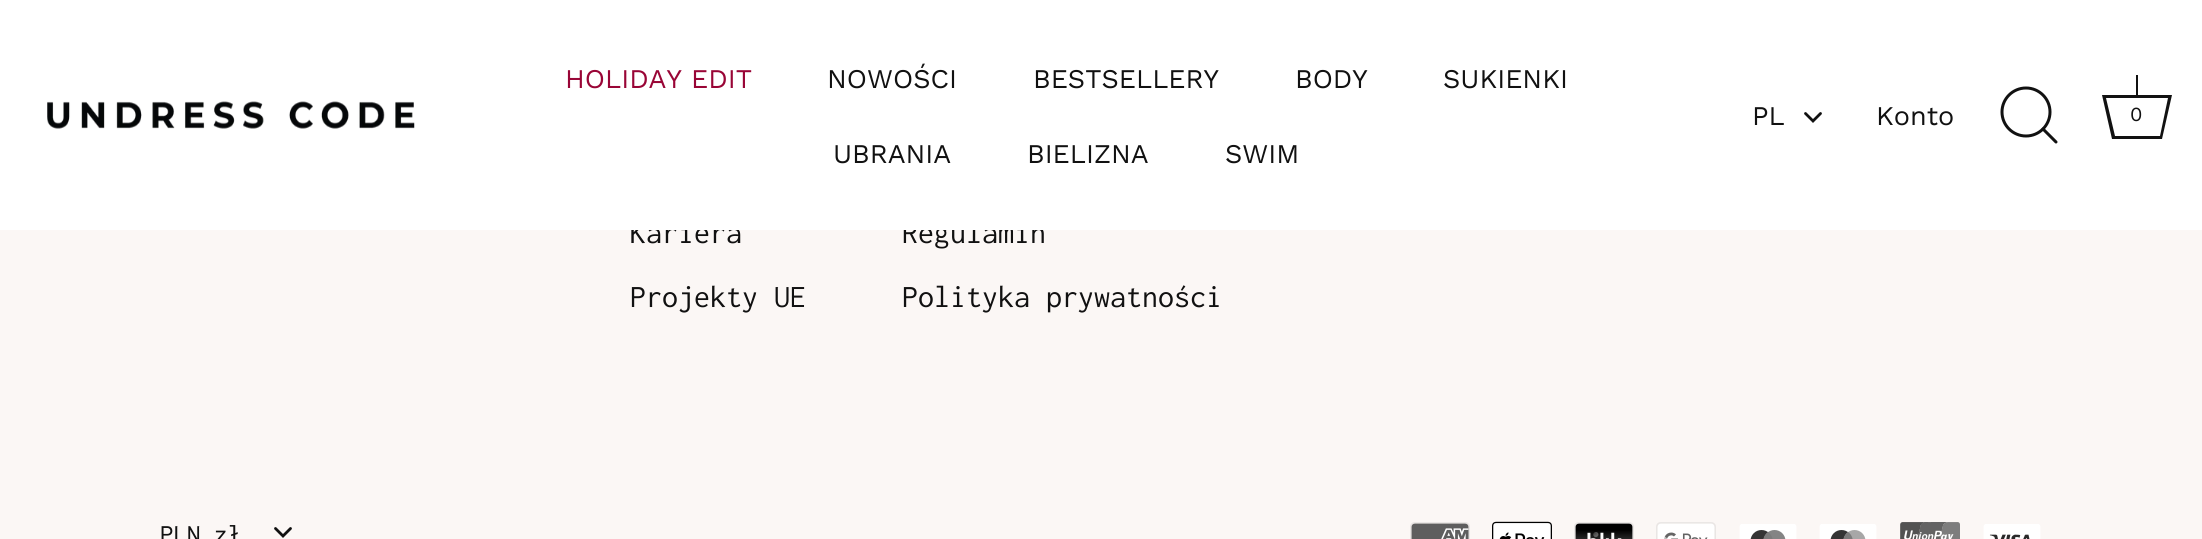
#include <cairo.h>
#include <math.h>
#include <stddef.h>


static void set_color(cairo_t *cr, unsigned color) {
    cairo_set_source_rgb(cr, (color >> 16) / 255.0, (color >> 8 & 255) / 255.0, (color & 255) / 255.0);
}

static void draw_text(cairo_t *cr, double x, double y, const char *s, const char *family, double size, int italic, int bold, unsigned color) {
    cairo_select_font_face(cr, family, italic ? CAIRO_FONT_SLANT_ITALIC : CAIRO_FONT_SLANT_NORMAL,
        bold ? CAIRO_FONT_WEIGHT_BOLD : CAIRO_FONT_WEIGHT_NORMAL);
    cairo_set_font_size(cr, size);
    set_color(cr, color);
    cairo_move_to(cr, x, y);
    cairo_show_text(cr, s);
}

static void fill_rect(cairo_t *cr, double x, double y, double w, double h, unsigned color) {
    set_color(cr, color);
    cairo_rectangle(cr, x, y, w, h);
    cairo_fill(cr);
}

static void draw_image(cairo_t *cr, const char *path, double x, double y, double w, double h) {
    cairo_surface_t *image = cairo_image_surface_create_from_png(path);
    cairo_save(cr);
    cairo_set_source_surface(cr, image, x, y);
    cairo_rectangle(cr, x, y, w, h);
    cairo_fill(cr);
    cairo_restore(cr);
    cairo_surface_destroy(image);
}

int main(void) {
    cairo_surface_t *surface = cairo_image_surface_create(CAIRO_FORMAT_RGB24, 2202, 539);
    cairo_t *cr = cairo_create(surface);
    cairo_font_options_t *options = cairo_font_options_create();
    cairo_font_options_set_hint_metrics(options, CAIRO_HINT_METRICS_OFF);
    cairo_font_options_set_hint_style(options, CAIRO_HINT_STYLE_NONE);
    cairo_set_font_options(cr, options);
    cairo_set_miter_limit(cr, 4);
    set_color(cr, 0xFBF7F5);
    cairo_paint(cr);
    draw_text(cr, 630, 243, "Kariera", "Inconsolata", 32, 0, 0, 0x111111);
    draw_text(cr, 902, 243, "Regulamin", "Inconsolata", 32, 0, 0, 0x111111);
    fill_rect(cr, 0, 0, 2202, 230, 0xFFFFFF);
    draw_image(cr, "assets/img1.png", 47, 101, 368, 28);
    draw_text(cr, 565, 88, "HOLIDAY EDIT", "Work Sans", 27, 0, 0, 0x990536);
    draw_text(cr, 827, 88, "NOWOŚCI", "Work Sans", 27, 0, 0, 0x111111);
    draw_text(cr, 1033, 88, "BESTSELLERY", "Work Sans", 27, 0, 0, 0x111111);
    draw_text(cr, 1295, 88, "BODY", "Work Sans", 27, 0, 0, 0x111111);
    draw_text(cr, 1443, 88, "SUKIENKI", "Work Sans", 27, 0, 0, 0x111111);
    draw_text(cr, 833, 163, "UBRANIA", "Work Sans", 27, 0, 0, 0x111111);
    draw_text(cr, 1027, 163, "BIELIZNA", "Work Sans", 27, 0, 0, 0x111111);
    draw_text(cr, 1225, 163, "SWIM", "Work Sans", 27, 0, 0, 0x111111);
    draw_text(cr, 1752, 125, "PL", "Work Sans", 27, 0, 0, 0x111111);
    cairo_new_path(cr);
    cairo_move_to(cr, 1805.5, 113.5);
    cairo_line_to(cr, 1813, 121);
    cairo_line_to(cr, 1820.5, 113.5);
    cairo_set_line_width(cr, 2.8);
    cairo_set_line_cap(cr, CAIRO_LINE_CAP_ROUND);
    cairo_stroke(cr);
    draw_text(cr, 1876, 125, "Konto", "Work Sans", 27, 0, 0, 0x111111);
    cairo_new_path(cr);
    cairo_arc(cr, 2026, 112, 24, 0, 2 * M_PI);
    cairo_set_line_width(cr, 3);
    cairo_set_line_cap(cr, CAIRO_LINE_CAP_BUTT);
    cairo_stroke(cr);
    cairo_new_path(cr);
    cairo_move_to(cr, 2056, 142);
    cairo_line_to(cr, 2043, 129);
    cairo_set_line_cap(cr, CAIRO_LINE_CAP_ROUND);
    cairo_set_line_join(cr, CAIRO_LINE_JOIN_ROUND);
    cairo_stroke(cr);
    fill_rect(cr, 2136, 75, 2, 20, 0x111111);
    cairo_new_path(cr);
    cairo_move_to(cr, 2168, 98);
    cairo_line_to(cr, 2160, 136);
    cairo_line_to(cr, 2115, 136);
    cairo_line_to(cr, 2106, 98);
    cairo_line_to(cr, 2168, 98);
    cairo_move_to(cr, 2172, 95);
    cairo_line_to(cr, 2102, 95);
    cairo_line_to(cr, 2112, 139);
    cairo_line_to(cr, 2162, 139);
    cairo_close_path(cr);
    cairo_fill(cr);
    draw_text(cr, 2130, 121, "0", "Work Sans", 20, 0, 0, 0x111111);
    draw_text(cr, 630, 307, "Projekty UE", "Inconsolata", 32, 0, 0, 0x111111);
    draw_text(cr, 902, 307, "Polityka prywatności", "Inconsolata", 32, 0, 0, 0x111111);
    draw_text(cr, 160, 543, "PLN zł", "Inconsolata", 27, 0, 0, 0x111111);
    cairo_new_path(cr);
    cairo_move_to(cr, 275.5, 528.5);
    cairo_line_to(cr, 283, 536);
    cairo_line_to(cr, 290.5, 528.5);
    cairo_set_line_width(cr, 2.8);
    cairo_set_line_join(cr, CAIRO_LINE_JOIN_MITER);
    cairo_stroke(cr);
    draw_image(cr, "assets/img2.png", 1410, 522, 60, 17);
    draw_image(cr, "assets/img3.png", 1492, 521, 60, 18);
    draw_image(cr, "assets/img4.png", 1574, 522, 60, 17);
    draw_image(cr, "assets/img5.png", 1656, 522, 60, 17);
    draw_image(cr, "assets/img6.png", 1739, 524, 58, 15);
    draw_image(cr, "assets/img7.png", 1819, 524, 58, 15);
    draw_image(cr, "assets/img8.png", 1900, 522, 60, 17);
    draw_image(cr, "assets/img9.png", 1983, 524, 58, 15);
    cairo_surface_write_to_png(surface, "output.png");
    cairo_font_options_destroy(options);
    cairo_destroy(cr);
    cairo_surface_destroy(surface);
    return 0;
}
